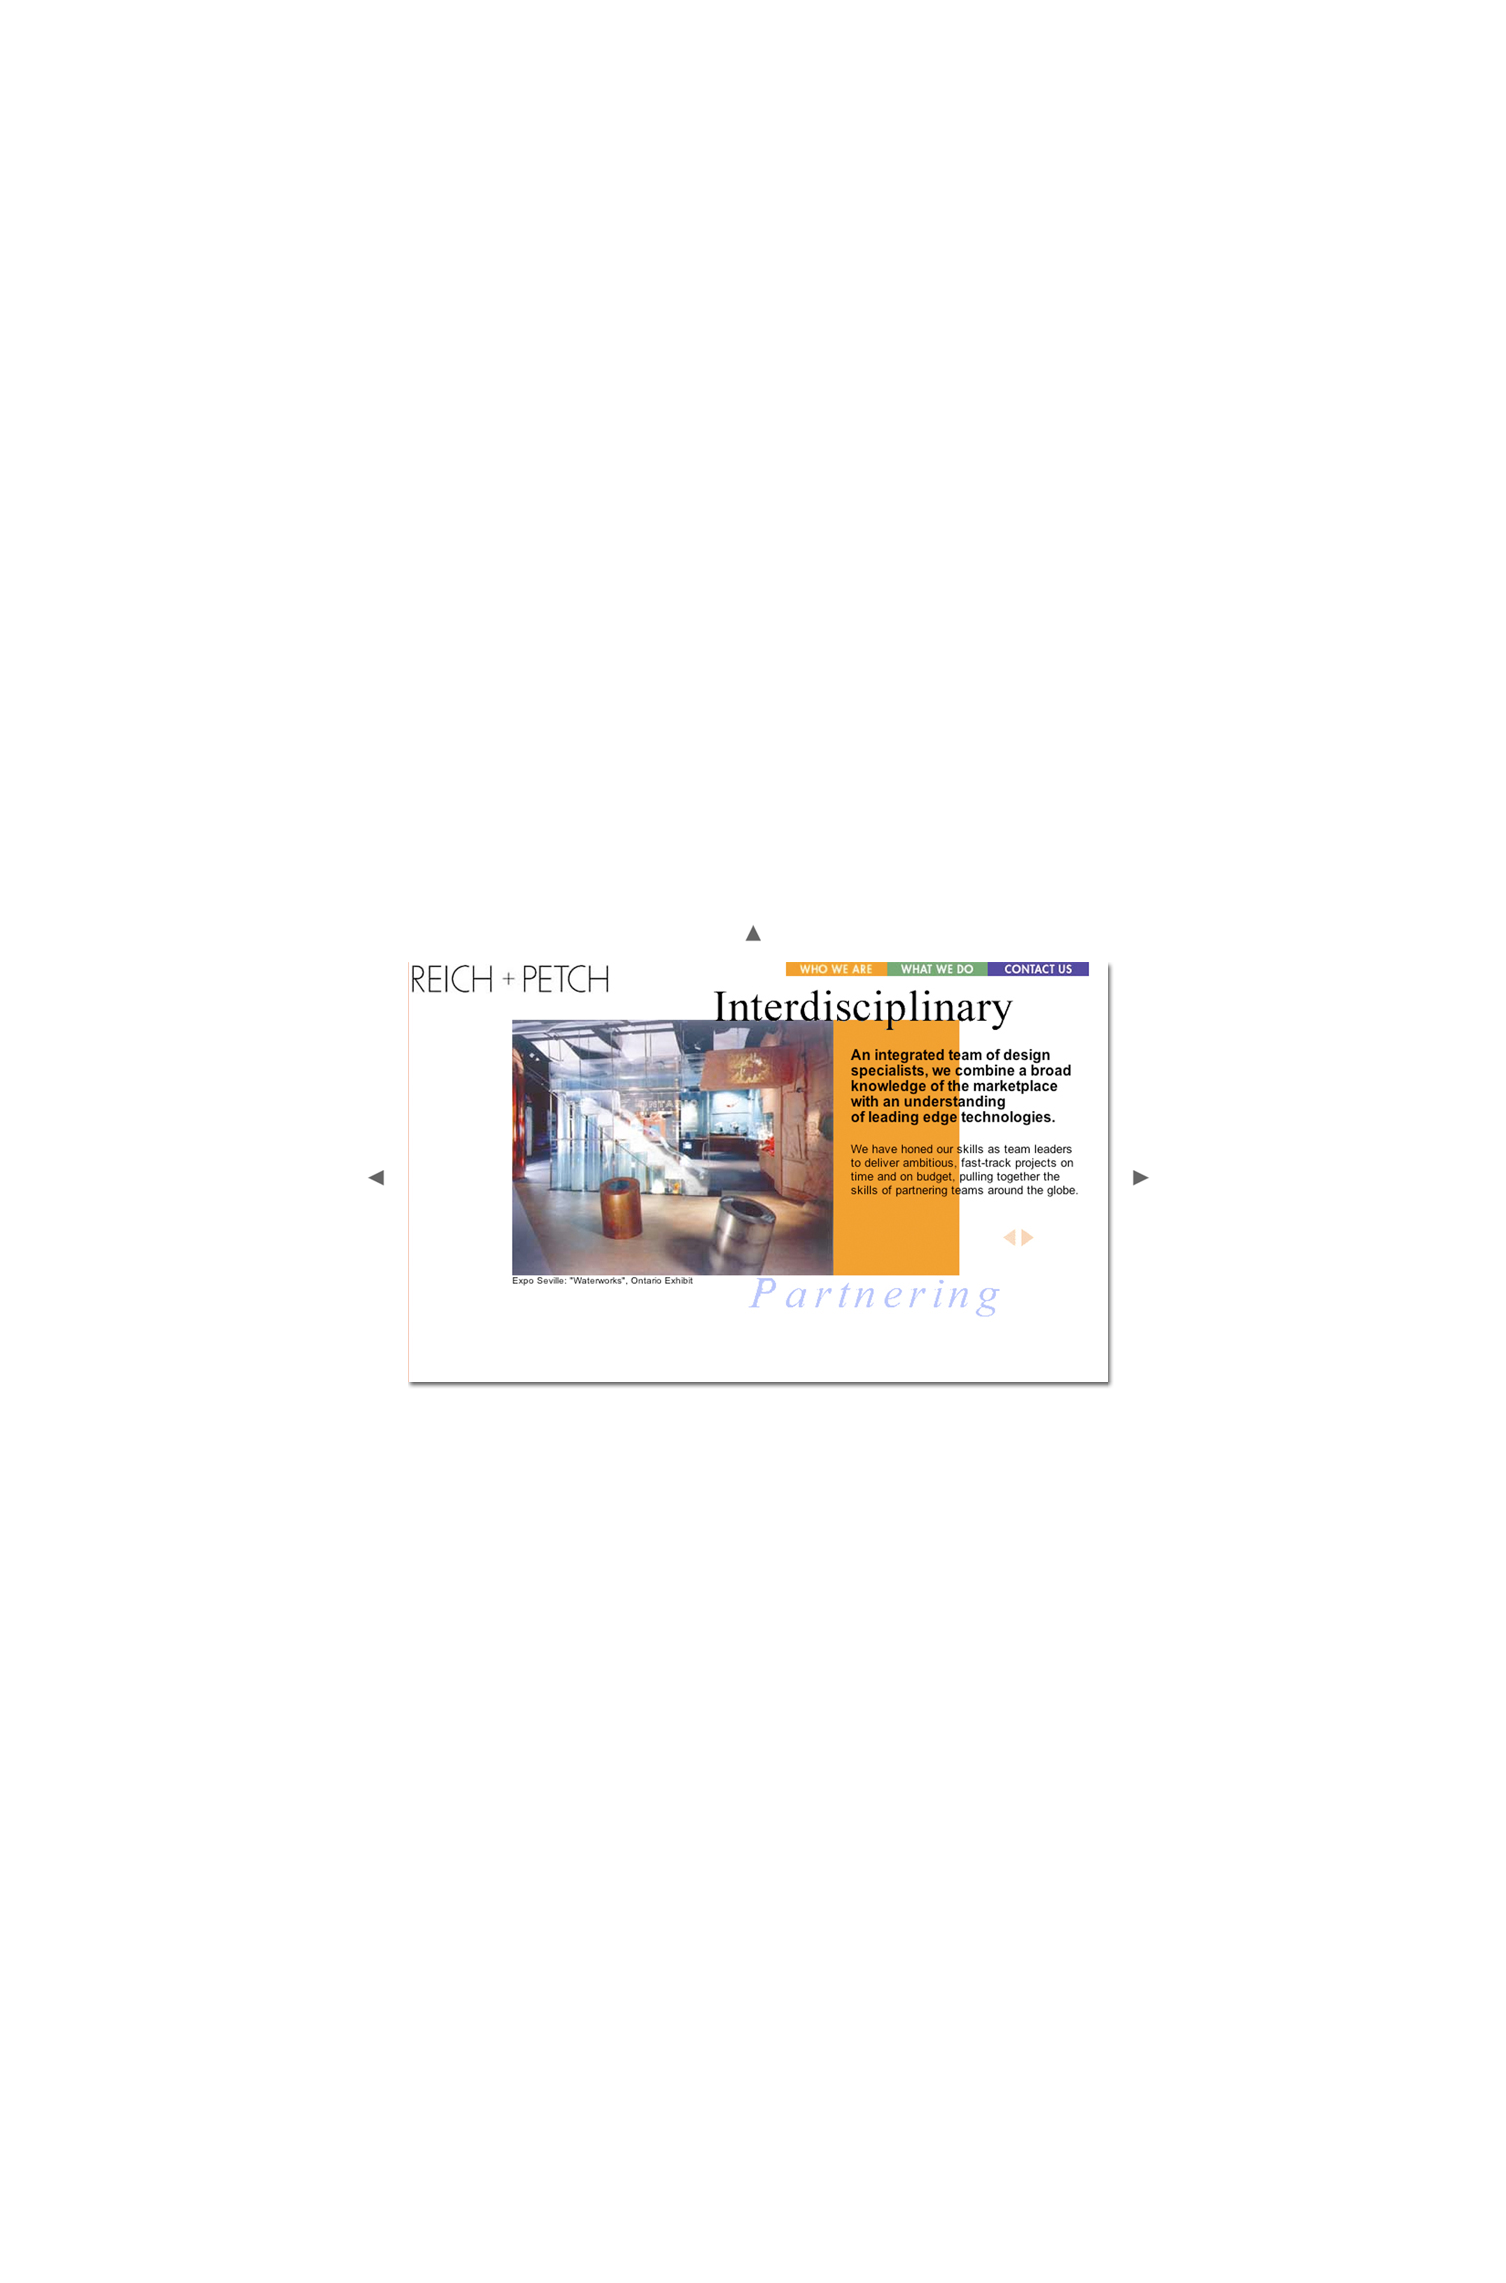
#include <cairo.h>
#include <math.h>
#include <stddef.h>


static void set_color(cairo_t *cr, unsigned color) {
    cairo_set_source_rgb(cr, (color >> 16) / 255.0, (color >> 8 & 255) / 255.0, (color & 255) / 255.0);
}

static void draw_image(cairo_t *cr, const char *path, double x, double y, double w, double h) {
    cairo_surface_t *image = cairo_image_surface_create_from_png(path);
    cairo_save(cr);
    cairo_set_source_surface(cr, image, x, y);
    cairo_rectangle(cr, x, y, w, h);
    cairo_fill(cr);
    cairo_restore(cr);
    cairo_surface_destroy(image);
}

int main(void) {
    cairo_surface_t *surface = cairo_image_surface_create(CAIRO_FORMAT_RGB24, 1506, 2283);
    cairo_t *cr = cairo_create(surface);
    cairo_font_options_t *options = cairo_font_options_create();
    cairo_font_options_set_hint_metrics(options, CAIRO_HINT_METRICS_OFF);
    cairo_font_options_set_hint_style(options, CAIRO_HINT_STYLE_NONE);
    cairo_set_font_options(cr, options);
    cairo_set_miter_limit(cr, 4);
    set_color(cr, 0xFFFFFF);
    cairo_paint(cr);
    draw_image(cr, "assets/img1.png", 745, 924, 16, 18);
    draw_image(cr, "assets/img2.png", 367, 1170, 18, 16);
    draw_image(cr, "assets/img3.png", 408, 962, 682, 420);
    draw_image(cr, "assets/img4.png", 1108, 969, 6, 413);
    draw_image(cr, "assets/img5.png", 1108, 962, 6, 7);
    draw_image(cr, "assets/img6.png", 414, 1382, 694, 7);
    draw_image(cr, "assets/img7.png", 408, 1382, 6, 7);
    draw_image(cr, "assets/img8.png", 1108, 1382, 6, 7);
    draw_image(cr, "assets/img9.png", 1132, 1170, 18, 16);
    cairo_surface_write_to_png(surface, "output.png");
    cairo_font_options_destroy(options);
    cairo_destroy(cr);
    cairo_surface_destroy(surface);
    return 0;
}
